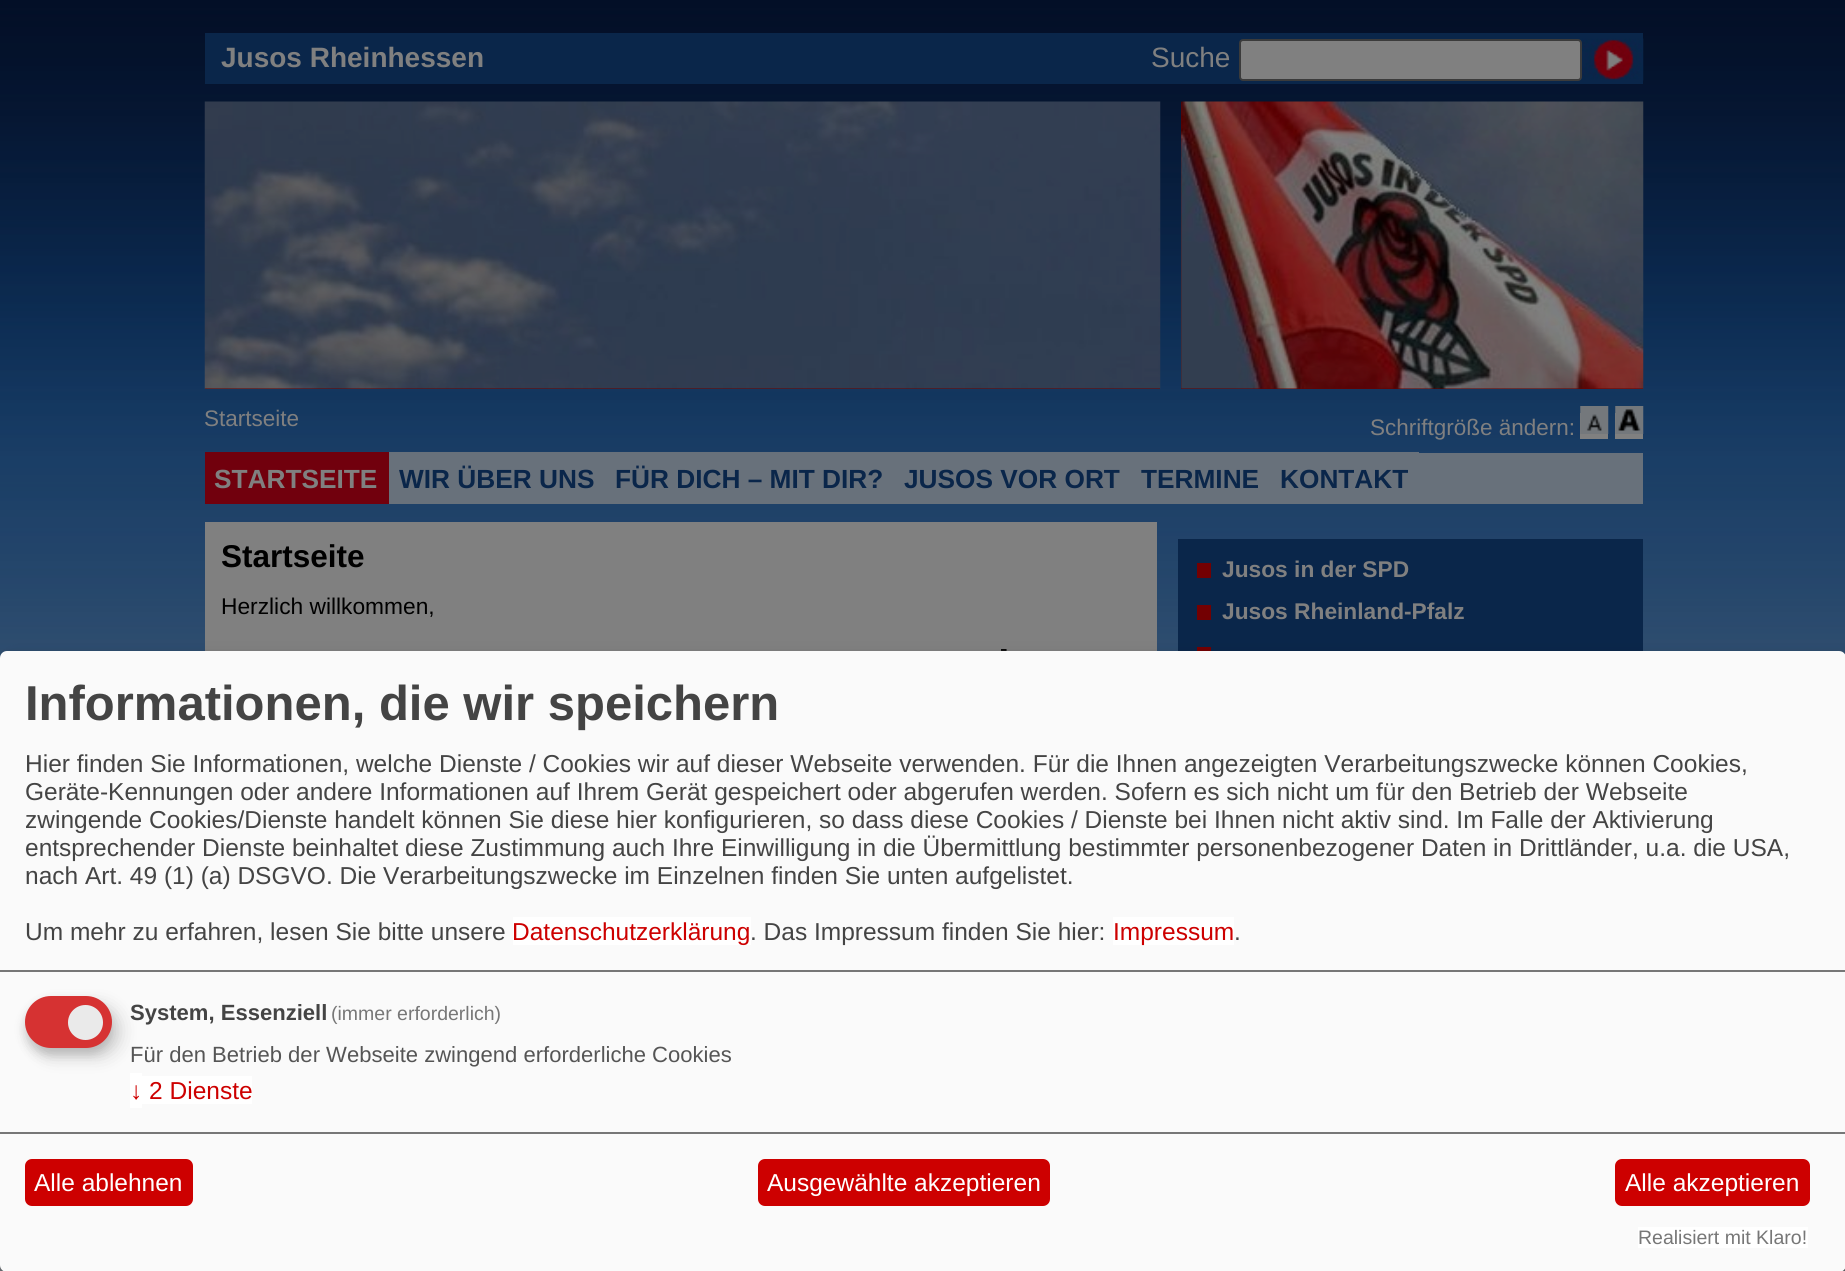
#include <cairo.h>
#include <math.h>
#include <stddef.h>


static void set_color(cairo_t *cr, unsigned color) {
    cairo_set_source_rgb(cr, (color >> 16) / 255.0, (color >> 8 & 255) / 255.0, (color & 255) / 255.0);
}

static void draw_text(cairo_t *cr, double x, double y, const char *s, const char *family, double size, int italic, int bold, unsigned color) {
    cairo_select_font_face(cr, family, italic ? CAIRO_FONT_SLANT_ITALIC : CAIRO_FONT_SLANT_NORMAL,
        bold ? CAIRO_FONT_WEIGHT_BOLD : CAIRO_FONT_WEIGHT_NORMAL);
    cairo_set_font_size(cr, size);
    set_color(cr, color);
    cairo_move_to(cr, x, y);
    cairo_show_text(cr, s);
}

static void draw_spaced(cairo_t *cr, double x, double y, const char *s, double letter, double word) {
    cairo_move_to(cr, x, y);
    while (*s) {
        char ch[5] = {0};
        int n = 0;
        do ch[n++] = *s++; while ((*s & 0xC0) == 0x80);
        cairo_show_text(cr, ch);
        cairo_rel_move_to(cr, letter + word * (*ch == ' '), 0);
    }
}

static void fill_rect(cairo_t *cr, double x, double y, double w, double h, unsigned color) {
    set_color(cr, color);
    cairo_rectangle(cr, x, y, w, h);
    cairo_fill(cr);
}

static void rounded_rect(cairo_t *cr, double x, double y, double w, double h, double r) {
    cairo_new_sub_path(cr);
    cairo_arc(cr, x + w - r, y + h - r, r, 0, M_PI / 2);
    cairo_arc(cr, x + r, y + h - r, r, M_PI / 2, M_PI);
    cairo_arc(cr, x + r, y + r, r, M_PI, 1.5 * M_PI);
    cairo_arc(cr, x + w - r, y + r, r, 1.5 * M_PI, 2 * M_PI);
    cairo_close_path(cr);
}

static void draw_shadow(cairo_t *cr, double x, double y, double w, double h, double r, double blur, double alpha) {
    cairo_push_group_with_content(cr, CAIRO_CONTENT_ALPHA);
    cairo_set_operator(cr, CAIRO_OPERATOR_SOURCE);
    for (int i = 15; i >= -15 && fmin(w, h) + blur * i / 3 > 0; i -= 2) {
        double e = blur * i / 6;
        cairo_set_source_rgba(cr, 0, 0, 0, alpha * erfc((i - 1) / 8.5) / 2);
        rounded_rect(cr, x - e, y - e, w + 2 * e, h + 2 * e, fmax(0, fmin(r + e + blur * .6, fmin(w, h) / 2 + e)));
        cairo_fill(cr);
    }
    cairo_pattern_t *soft = cairo_pop_group(cr);
    cairo_mask(cr, soft);
    cairo_pattern_destroy(soft);
}

static void draw_image(cairo_t *cr, const char *path, double x, double y, double w, double h) {
    cairo_surface_t *image = cairo_image_surface_create_from_png(path);
    cairo_save(cr);
    cairo_set_source_surface(cr, image, x, y);
    cairo_rectangle(cr, x, y, w, h);
    cairo_fill(cr);
    cairo_restore(cr);
    cairo_surface_destroy(image);
}

int main(void) {
    cairo_surface_t *surface = cairo_image_surface_create(CAIRO_FORMAT_RGB24, 1845, 1271);
    cairo_t *cr = cairo_create(surface);
    cairo_font_options_t *options = cairo_font_options_create();
    cairo_font_options_set_hint_metrics(options, CAIRO_HINT_METRICS_OFF);
    cairo_font_options_set_hint_style(options, CAIRO_HINT_STYLE_NONE);
    cairo_set_font_options(cr, options);
    cairo_set_miter_limit(cr, 4);
    set_color(cr, 0x74787D);
    cairo_paint(cr);
    draw_image(cr, "assets/img1.png", 0, 0, 1845, 658);
    fill_rect(cr, 205, 33, 1438, 51, 0x0A264A);
    draw_text(cr, 221, 67, "Jusos Rheinhessen", "Liberation Sans", 28, 0, 1, 0x808080);
    draw_text(cr, 1151, 67, "Suche", "Liberation Sans", 28, 0, 0, 0x808080);
    rounded_rect(cr, 1240, 40, 341, 40, 3);
    cairo_fill_preserve(cr);
    set_color(cr, 0x3B3B3B);
    cairo_stroke(cr);
    draw_image(cr, "assets/img2.png", 1582, 38, 62, 43);
    fill_rect(cr, 205, 388, 955, 1, 0x660000);
    draw_image(cr, "assets/img3.png", 204, 101, 957, 288);
    fill_rect(cr, 1181, 102, 462, 287, 0x660000);
    draw_image(cr, "assets/img4.png", 1181, 101, 463, 288);
    draw_text(cr, 204, 426, "Startseite", "Liberation Sans", 22.5, 0, 0, 0x808080);
    fill_rect(cr, 1580, 413, 28, 26, 0x808080);
    draw_image(cr, "assets/img5.png", 1580, 406, 29, 28);
    fill_rect(cr, 1615, 413, 28, 26, 0x808080);
    draw_image(cr, "assets/img6.png", 1615, 406, 29, 28);
    draw_text(cr, 1370, 435, "Schriftgröße ändern:", "Liberation Sans", 22.5, 0, 0, 0x808080);
    fill_rect(cr, 1419, 453, 224, 51, 0x68717B);
    fill_rect(cr, 205, 452, 184, 52, 0x71000D);
    draw_text(cr, 214, 488, "STARTSEITE", "Liberation Sans", 26.25, 0, 1, 0x808080);
    fill_rect(cr, 389, 452, 1030, 52, 0x68717B);
    draw_text(cr, 399, 488, "WIR ÜBER UNS", "Liberation Sans", 26.25, 0, 1, 0x0A264A);
    draw_text(cr, 615, 488, "FÜR DICH – MIT DIR?", "Liberation Sans", 26.25, 0, 1, 0x0A264A);
    draw_text(cr, 904, 488, "JUSOS VOR ORT", "Liberation Sans", 26.25, 0, 1, 0x0A264A);
    draw_text(cr, 1141, 488, "TERMINE", "Liberation Sans", 26.25, 0, 1, 0x0A264A);
    draw_text(cr, 1280, 488, "KONTAKT", "Liberation Sans", 26.25, 0, 1, 0x0A264A);
    fill_rect(cr, 205, 522, 952, 129, 0x808080);
    draw_text(cr, 221, 567, "Startseite", "Liberation Sans", 31.5, 0, 1, 0x000000);
    draw_text(cr, 221, 614, "Herzlich willkommen,", "Liberation Sans", 22.75, 0, 0, 0x000000);
    draw_spaced(cr, 1000, 656, "-", 0, 3);
    fill_rect(cr, 1178, 539, 465, 112, 0x0A264A);
    fill_rect(cr, 1197, 563, 14, 15, 0x730002);
    draw_text(cr, 1222, 577, "Jusos in der SPD", "Liberation Sans", 22.75, 0, 1, 0x808080);
    fill_rect(cr, 1197, 605, 14, 15, 0x730002);
    draw_text(cr, 1222, 619, "Jusos Rheinland-Pfalz", "Liberation Sans", 22.75, 0, 1, 0x808080);
    fill_rect(cr, 1197, 647, 14, 4, 0x730002);
    set_color(cr, 0x000000);
    draw_shadow(cr, 9, 660, 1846, 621, 7, 9, 0.19);
    draw_shadow(cr, 0, 658, 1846, 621, 7, 5, 0.2);
    set_color(cr, 0xFAFAFA);
    rounded_rect(cr, 0, 651, 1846, 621, 7);
    cairo_fill(cr);
    fill_rect(cr, 0, 970, 1845, 2, 0x777777);
    draw_text(cr, 25, 720, "Informationen, die wir speichern", "Liberation Sans", 49, 0, 1, 0x444444);
    draw_text(cr, 25, 772, "Hier finden Sie Informationen, welche Dienste / Cookies wir auf dieser Webseite verwenden. Für die Ihnen angezeigten Verarbeitungszwecke können Cookies,", "Liberation Sans", 24.5, 0, 0, 0x444444);
    draw_text(cr, 25, 800, "Geräte-Kennungen oder andere Informationen auf Ihrem Gerät gespeichert oder abgerufen werden. Sofern es sich nicht um für den Betrieb der Webseite", "Liberation Sans", 24.5, 0, 0, 0x444444);
    draw_text(cr, 25, 828, "zwingende Cookies/Dienste handelt können Sie diese hier konfigurieren, so dass diese Cookies / Dienste bei Ihnen nicht aktiv sind. Im Falle der Aktivierung", "Liberation Sans", 24.5, 0, 0, 0x444444);
    draw_text(cr, 25, 856, "entsprechender Dienste beinhaltet diese Zustimmung auch Ihre Einwilligung in die Übermittlung bestimmter personenbezogener Daten in Drittländer, u.a. die USA,", "Liberation Sans", 24.5, 0, 0, 0x444444);
    draw_text(cr, 25, 884, "nach Art. 49 (1) (a) DSGVO. Die Verarbeitungszwecke im Einzelnen finden Sie unten aufgelistet.", "Liberation Sans", 24.5, 0, 0, 0x444444);
    draw_text(cr, 25, 940, "Um mehr zu erfahren, lesen Sie bitte unsere", "Liberation Sans", 24.5, 0, 0, 0x444444);
    fill_rect(cr, 513, 917, 238, 28, 0xFFFFFF);
    draw_text(cr, 512, 940, "Datenschutzerklärung", "Liberation Sans", 24.5, 0, 0, 0xCD0000);
    draw_text(cr, 750, 940, ". Das Impressum finden Sie hier:", "Liberation Sans", 24.5, 0, 0, 0x444444);
    fill_rect(cr, 1113, 917, 121, 28, 0xFFFFFF);
    draw_text(cr, 1113, 940, "Impressum", "Liberation Sans", 24.5, 0, 0, 0xCD0000);
    draw_text(cr, 1234, 940, ".", "Liberation Sans", 24.5, 0, 0, 0x444444);
    fill_rect(cr, 130, 1073, 12, 35, 0xFFFFFF);
    fill_rect(cr, 142, 1076, 110, 28, 0xFFFFFF);
    set_color(cr, 0x000000);
    draw_shadow(cr, 33, 1005, 88, 52, 26, 9, 0.15);
    set_color(cr, 0x323232);
    draw_shadow(cr, 25, 1003, 87, 52, 26, 5, 0.2);
    set_color(cr, 0xD63232);
    rounded_rect(cr, 25, 996, 87, 52, 26);
    cairo_fill(cr);
    set_color(cr, 0xEAEAEA);
    cairo_arc(cr, 85.5, 1022.5, 17.5, 0, 2 * M_PI);
    cairo_fill(cr);
    draw_text(cr, 130, 1020, "System, Essenziell", "Liberation Sans", 22.05, 0, 1, 0x444444);
    draw_text(cr, 331, 1020, "(immer erforderlich)", "Liberation Sans", 19.5, 0, 0, 0x777777);
    draw_text(cr, 130, 1062, "Für den Betrieb der Webseite zwingend erforderliche Cookies", "Liberation Sans", 22.05, 0, 0, 0x555555);
    draw_text(cr, 130, 1099, "↓ 2 Dienste", "Liberation Sans", 24.5, 0, 0, 0xCD0000);
    fill_rect(cr, 0, 1132, 1845, 2, 0x777777);
    set_color(cr, 0xCD0000);
    rounded_rect(cr, 25, 1159, 168, 47, 7);
    cairo_fill(cr);
    draw_text(cr, 34, 1191, "Alle ablehnen", "Liberation Sans", 24.5, 0, 0, 0xFFFFFF);
    set_color(cr, 0xCD0000);
    rounded_rect(cr, 758, 1159, 292, 47, 7);
    cairo_fill(cr);
    draw_text(cr, 767, 1191, "Ausgewählte akzeptieren", "Liberation Sans", 24.5, 0, 0, 0xFFFFFF);
    set_color(cr, 0xCD0000);
    rounded_rect(cr, 1615, 1159, 195, 47, 7);
    cairo_fill(cr);
    draw_text(cr, 1625, 1191, "Alle akzeptieren", "Liberation Sans", 24.5, 0, 0, 0xFFFFFF);
    fill_rect(cr, 1638, 1227, 170, 21, 0xFFFFFF);
    draw_text(cr, 1638, 1244, "Realisiert mit Klaro!", "Liberation Sans", 19.5, 0, 0, 0x777777);
    cairo_surface_write_to_png(surface, "output.png");
    cairo_font_options_destroy(options);
    cairo_destroy(cr);
    cairo_surface_destroy(surface);
    return 0;
}
